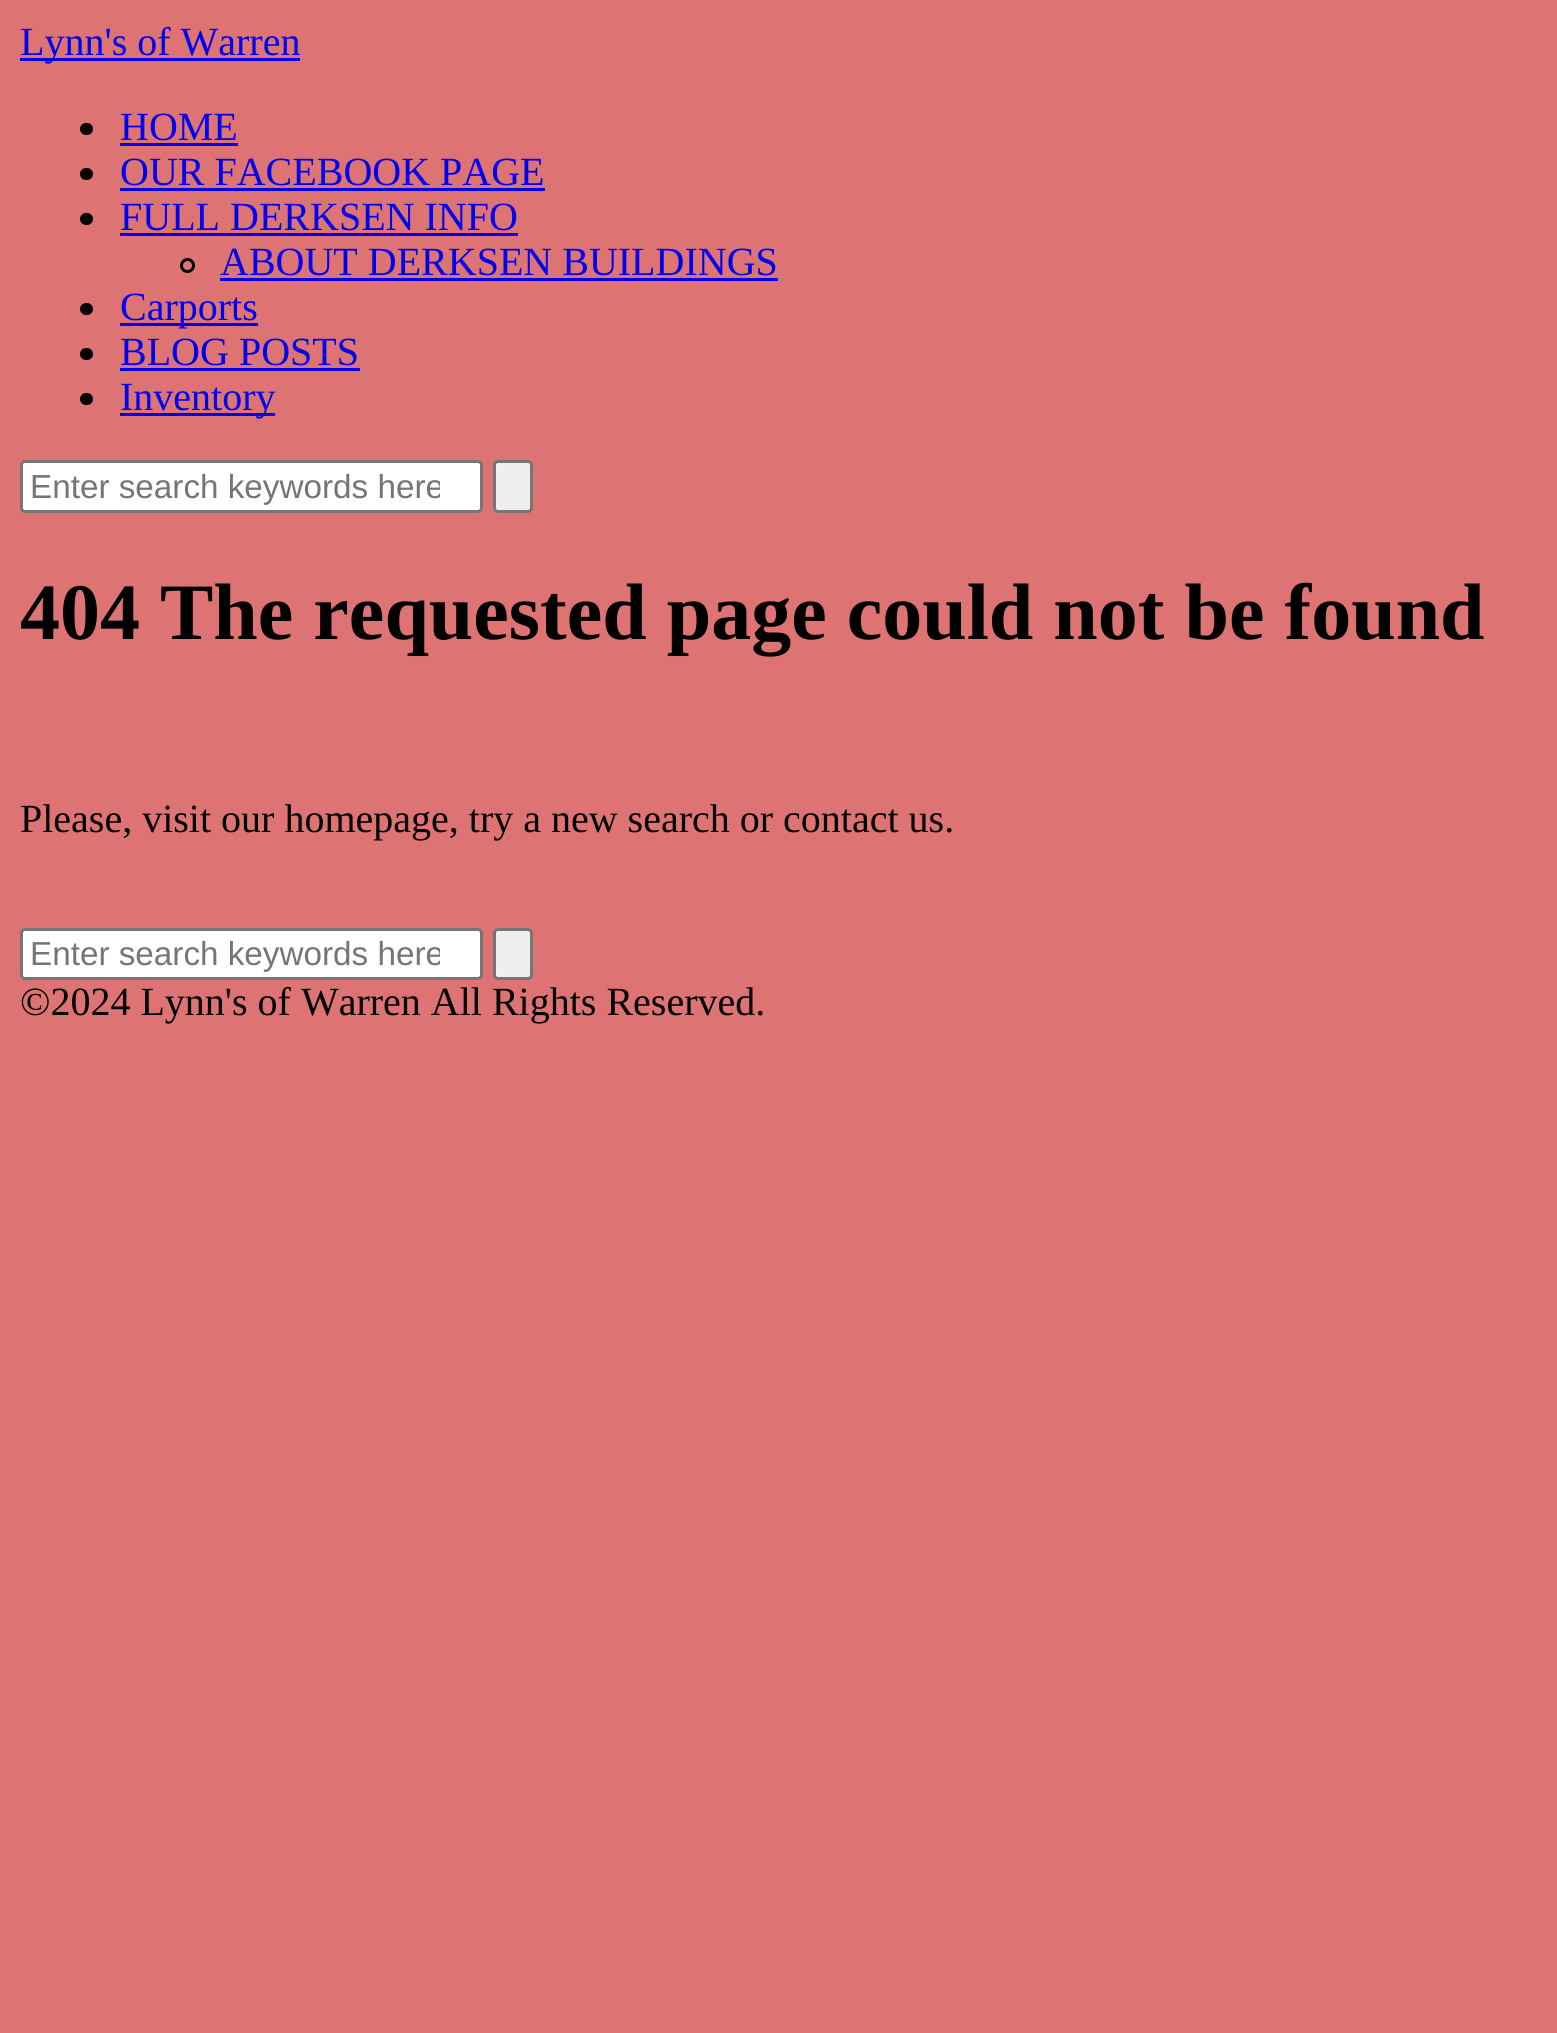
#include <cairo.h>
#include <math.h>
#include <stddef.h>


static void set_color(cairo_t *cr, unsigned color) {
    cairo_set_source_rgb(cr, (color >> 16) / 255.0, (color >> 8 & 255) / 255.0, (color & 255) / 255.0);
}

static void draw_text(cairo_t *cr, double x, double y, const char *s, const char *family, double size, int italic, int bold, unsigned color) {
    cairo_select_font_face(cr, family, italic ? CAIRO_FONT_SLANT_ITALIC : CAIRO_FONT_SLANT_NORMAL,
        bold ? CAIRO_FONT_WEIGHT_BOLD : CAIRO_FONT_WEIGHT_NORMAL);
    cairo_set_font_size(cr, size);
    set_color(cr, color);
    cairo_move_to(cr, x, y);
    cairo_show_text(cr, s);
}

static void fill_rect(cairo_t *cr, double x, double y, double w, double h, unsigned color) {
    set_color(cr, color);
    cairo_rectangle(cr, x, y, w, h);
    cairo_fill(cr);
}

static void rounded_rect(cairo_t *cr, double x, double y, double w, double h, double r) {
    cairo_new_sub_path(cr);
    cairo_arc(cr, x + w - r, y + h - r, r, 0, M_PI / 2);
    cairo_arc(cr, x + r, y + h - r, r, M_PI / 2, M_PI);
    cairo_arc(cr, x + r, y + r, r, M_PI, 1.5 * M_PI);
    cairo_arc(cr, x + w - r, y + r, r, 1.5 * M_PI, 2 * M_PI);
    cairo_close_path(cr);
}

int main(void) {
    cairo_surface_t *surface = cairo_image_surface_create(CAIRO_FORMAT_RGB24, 1557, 2033);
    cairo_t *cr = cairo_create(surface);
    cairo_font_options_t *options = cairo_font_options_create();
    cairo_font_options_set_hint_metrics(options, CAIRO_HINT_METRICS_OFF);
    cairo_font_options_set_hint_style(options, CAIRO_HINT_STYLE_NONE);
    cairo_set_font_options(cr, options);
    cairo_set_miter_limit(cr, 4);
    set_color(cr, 0xDD7373);
    cairo_paint(cr);
    fill_rect(cr, 20, 58, 280, 3, 0x0000EE);
    draw_text(cr, 20, 55, "Lynn's of Warren", "Liberation Serif", 40, 0, 0, 0x0000EE);
    set_color(cr, 0x000000);
    rounded_rect(cr, 80, 123, 13, 12, 6);
    cairo_fill(cr);
    draw_text(cr, 120, 140, "HOME", "Liberation Serif", 40, 0, 0, 0x0000EE);
    fill_rect(cr, 120, 143, 118, 3, 0x0000EE);
    set_color(cr, 0x000000);
    rounded_rect(cr, 80, 168, 13, 12, 6);
    cairo_fill(cr);
    draw_text(cr, 120, 185, "OUR FACEBOOK PAGE", "Liberation Serif", 40, 0, 0, 0x0000EE);
    fill_rect(cr, 120, 188, 425, 3, 0x0000EE);
    set_color(cr, 0x000000);
    rounded_rect(cr, 80, 213, 13, 12, 6);
    cairo_fill(cr);
    draw_text(cr, 120, 230, "FULL DERKSEN INFO", "Liberation Serif", 40, 0, 0, 0x0000EE);
    fill_rect(cr, 120, 233, 398, 3, 0x0000EE);
    cairo_new_path(cr);
    cairo_arc(cr, 187.5, 265.5, 6, 0, 2 * M_PI);
    set_color(cr, 0x000000);
    cairo_set_line_width(cr, 3);
    cairo_stroke(cr);
    draw_text(cr, 220, 275, "ABOUT DERKSEN BUILDINGS", "Liberation Serif", 40, 0, 0, 0x0000EE);
    fill_rect(cr, 220, 278, 558, 3, 0x0000EE);
    set_color(cr, 0x000000);
    rounded_rect(cr, 80, 303, 13, 12, 6);
    cairo_fill(cr);
    fill_rect(cr, 120, 323, 138, 3, 0x0000EE);
    draw_text(cr, 120, 320, "Carports", "Liberation Serif", 40, 0, 0, 0x0000EE);
    set_color(cr, 0x000000);
    rounded_rect(cr, 80, 348, 13, 12, 6);
    cairo_fill(cr);
    draw_text(cr, 120, 365, "BLOG POSTS", "Liberation Serif", 40, 0, 0, 0x0000EE);
    fill_rect(cr, 120, 368, 240, 3, 0x0000EE);
    set_color(cr, 0x000000);
    rounded_rect(cr, 80, 393, 13, 12, 6);
    cairo_fill(cr);
    fill_rect(cr, 120, 413, 155, 3, 0x0000EE);
    draw_text(cr, 120, 410, "Inventory", "Liberation Serif", 40, 0, 0, 0x0000EE);
    set_color(cr, 0xFFFFFF);
    rounded_rect(cr, 21.5, 461.5, 460, 50, 3.5);
    cairo_fill_preserve(cr);
    set_color(cr, 0x767676);
    cairo_stroke(cr);
    cairo_save(cr);
    cairo_rectangle(cr, 30, 468, 410, 37);
    cairo_clip(cr);
    draw_text(cr, 30, 498, "Enter search keywords here", "Liberation Sans", 33.25, 0, 0, 0x757575);
    cairo_restore(cr);
    set_color(cr, 0xEFEFEF);
    rounded_rect(cr, 494.5, 461.5, 37, 50, 3.5);
    cairo_fill_preserve(cr);
    set_color(cr, 0x767676);
    cairo_stroke(cr);
    draw_text(cr, 20, 639, "404 The requested page could not be found", "Liberation Serif", 80, 0, 1, 0x000000);
    draw_text(cr, 20, 832, "Please, visit our homepage, try a new search or contact us.", "Liberation Serif", 40, 0, 0, 0x000000);
    set_color(cr, 0xFFFFFF);
    rounded_rect(cr, 21.5, 929.5, 460, 49, 3.5);
    cairo_fill_preserve(cr);
    set_color(cr, 0x767676);
    cairo_stroke(cr);
    cairo_save(cr);
    cairo_rectangle(cr, 30, 935, 410, 38);
    cairo_clip(cr);
    draw_text(cr, 30, 965, "Enter search keywords here", "Liberation Sans", 33.25, 0, 0, 0x757575);
    cairo_restore(cr);
    set_color(cr, 0xEFEFEF);
    rounded_rect(cr, 494.5, 929.5, 37, 49, 3.5);
    cairo_fill_preserve(cr);
    set_color(cr, 0x767676);
    cairo_stroke(cr);
    draw_text(cr, 20, 1015, "©2024 Lynn's of Warren All Rights Reserved.", "Liberation Serif", 40, 0, 0, 0x000000);
    cairo_surface_write_to_png(surface, "output.png");
    cairo_font_options_destroy(options);
    cairo_destroy(cr);
    cairo_surface_destroy(surface);
    return 0;
}
